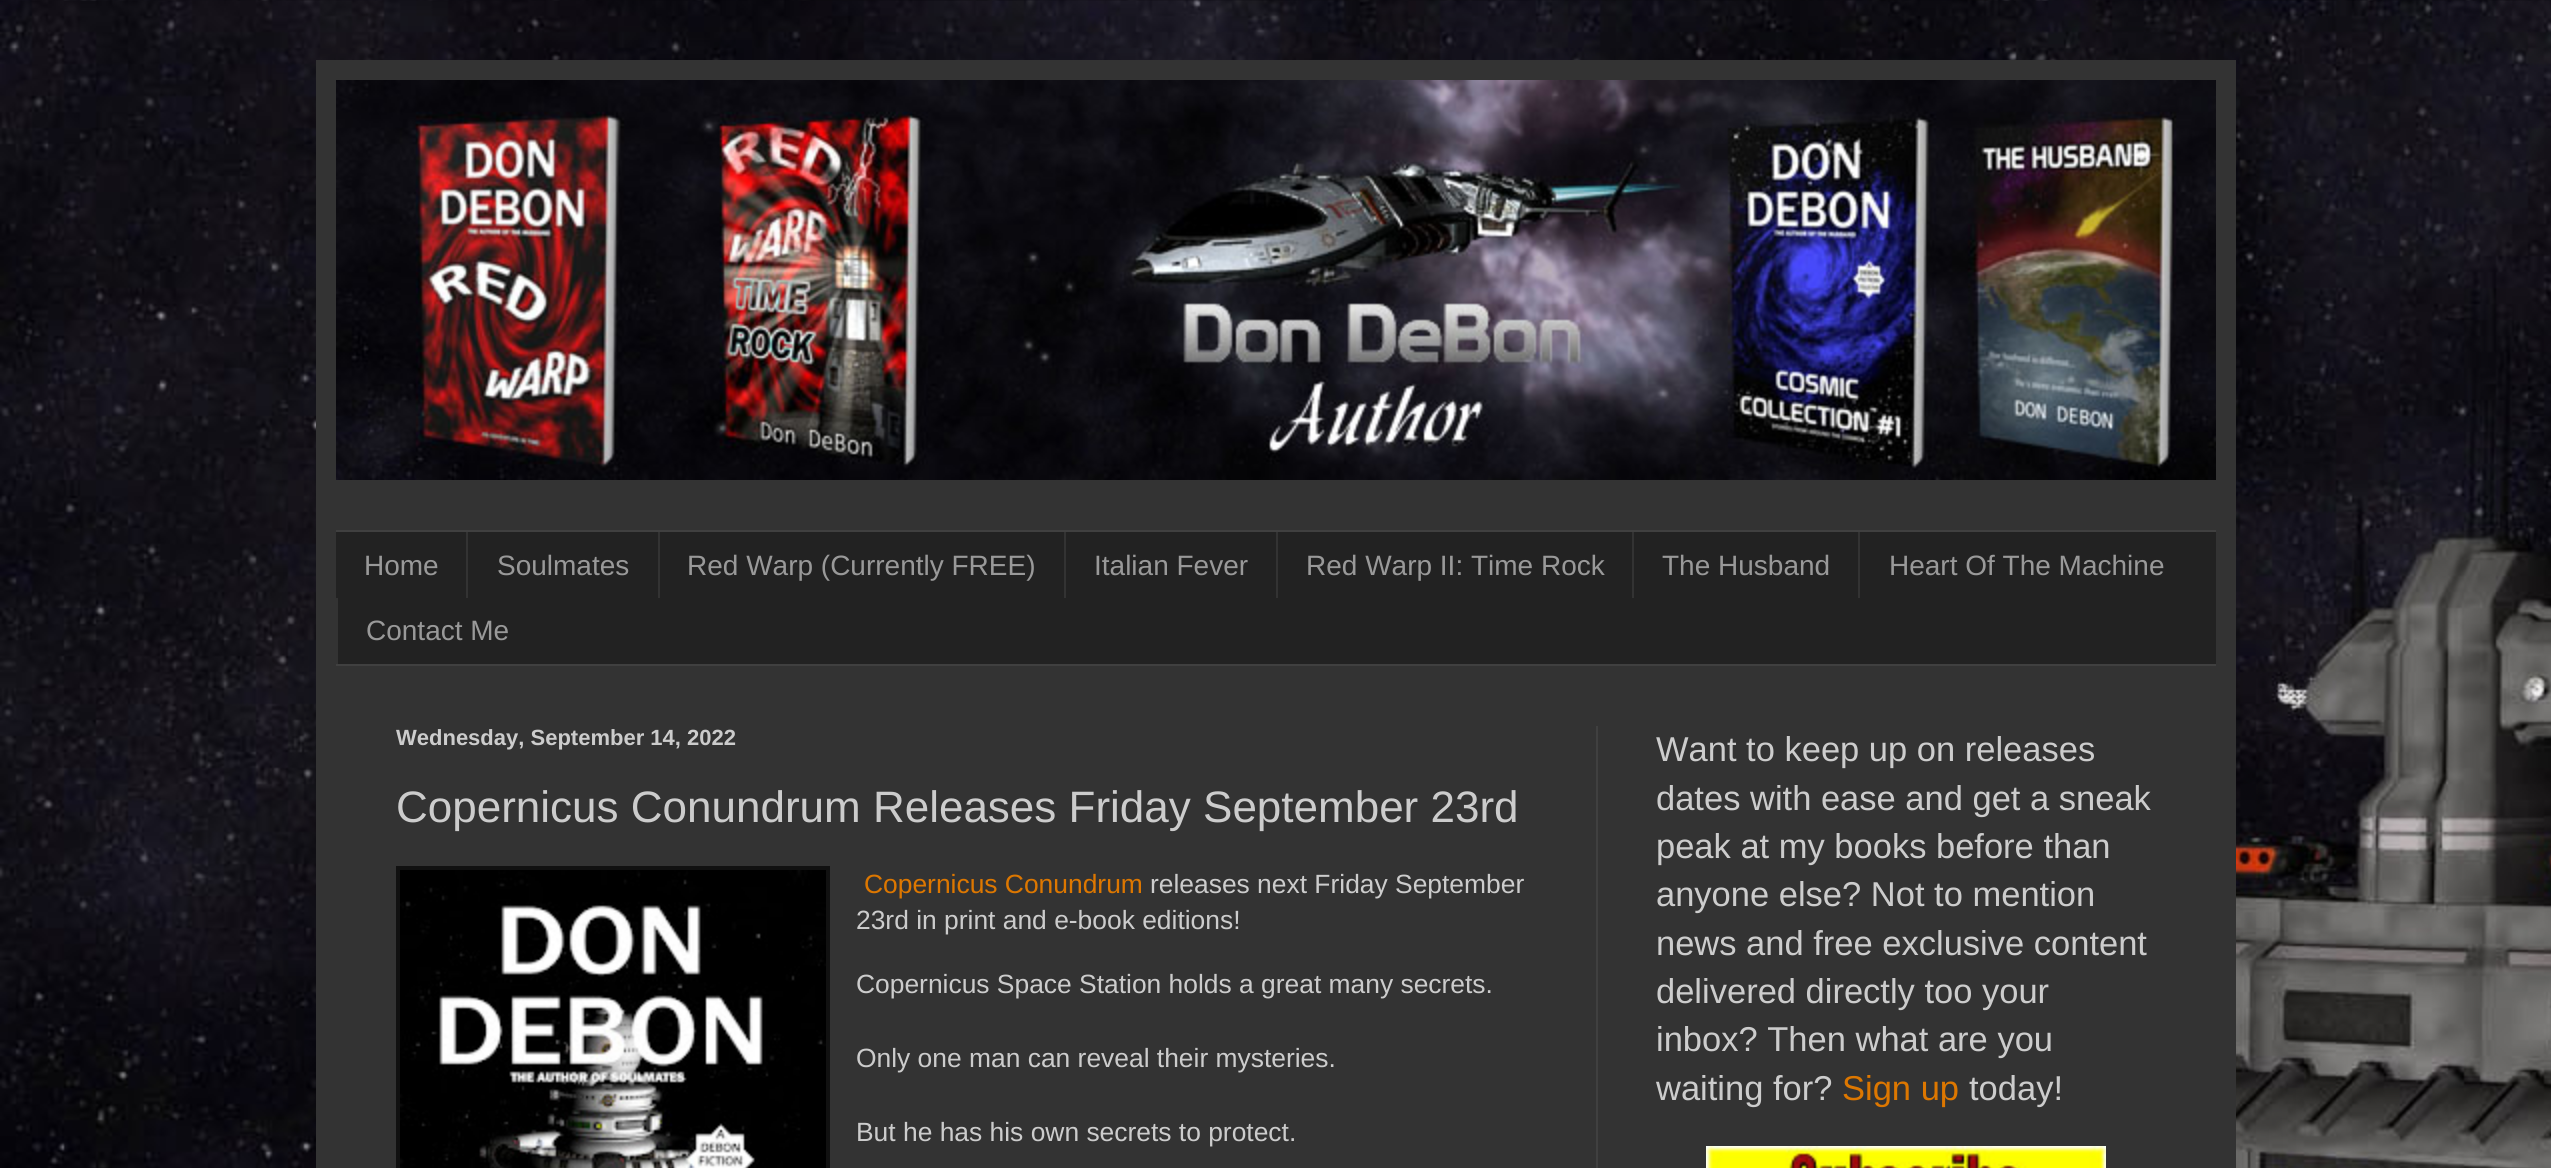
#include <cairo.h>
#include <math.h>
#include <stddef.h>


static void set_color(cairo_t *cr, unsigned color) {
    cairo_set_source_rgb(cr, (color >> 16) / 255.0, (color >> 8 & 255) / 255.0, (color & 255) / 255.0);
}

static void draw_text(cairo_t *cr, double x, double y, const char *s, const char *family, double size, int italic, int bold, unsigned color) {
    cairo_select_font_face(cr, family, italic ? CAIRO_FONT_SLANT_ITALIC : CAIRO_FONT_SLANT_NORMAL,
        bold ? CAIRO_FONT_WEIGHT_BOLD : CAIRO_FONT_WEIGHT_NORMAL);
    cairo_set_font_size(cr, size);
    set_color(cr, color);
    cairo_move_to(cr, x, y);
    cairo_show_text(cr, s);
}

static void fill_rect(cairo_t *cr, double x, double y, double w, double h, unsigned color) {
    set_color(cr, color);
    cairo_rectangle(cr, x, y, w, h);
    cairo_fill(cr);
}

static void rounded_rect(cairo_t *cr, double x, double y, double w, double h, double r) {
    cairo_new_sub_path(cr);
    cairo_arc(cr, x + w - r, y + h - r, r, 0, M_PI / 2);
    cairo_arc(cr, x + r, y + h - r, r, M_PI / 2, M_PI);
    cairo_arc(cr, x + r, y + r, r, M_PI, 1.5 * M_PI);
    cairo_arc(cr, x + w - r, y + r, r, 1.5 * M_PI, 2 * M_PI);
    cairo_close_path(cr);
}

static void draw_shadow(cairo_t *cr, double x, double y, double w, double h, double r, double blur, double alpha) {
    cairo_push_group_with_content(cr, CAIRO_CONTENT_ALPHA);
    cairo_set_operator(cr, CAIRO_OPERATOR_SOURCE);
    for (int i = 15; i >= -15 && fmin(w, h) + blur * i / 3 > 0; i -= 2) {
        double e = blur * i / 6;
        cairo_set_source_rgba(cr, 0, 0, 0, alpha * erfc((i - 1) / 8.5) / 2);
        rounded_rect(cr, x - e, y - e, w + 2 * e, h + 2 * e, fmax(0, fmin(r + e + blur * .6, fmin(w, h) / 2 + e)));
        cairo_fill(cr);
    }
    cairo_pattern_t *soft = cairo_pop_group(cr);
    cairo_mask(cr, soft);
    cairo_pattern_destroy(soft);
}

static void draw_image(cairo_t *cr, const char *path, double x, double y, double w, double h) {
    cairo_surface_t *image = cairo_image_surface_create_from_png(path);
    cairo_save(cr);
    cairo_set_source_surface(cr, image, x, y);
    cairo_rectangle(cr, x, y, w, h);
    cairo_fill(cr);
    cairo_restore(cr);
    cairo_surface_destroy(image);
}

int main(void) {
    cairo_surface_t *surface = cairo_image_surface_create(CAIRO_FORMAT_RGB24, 2551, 1168);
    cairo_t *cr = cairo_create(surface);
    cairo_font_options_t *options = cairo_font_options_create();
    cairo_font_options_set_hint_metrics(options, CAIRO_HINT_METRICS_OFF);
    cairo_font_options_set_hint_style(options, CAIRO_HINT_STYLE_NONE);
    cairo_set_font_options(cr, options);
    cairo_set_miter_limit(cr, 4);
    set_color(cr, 0xFFFFFF);
    cairo_paint(cr);
    draw_image(cr, "assets/img1.png", 0, 0, 2551, 1168);
    set_color(cr, 0x000000);
    draw_shadow(cr, 316, 60, 1920, 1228, 0, 40, 0.15);
    fill_rect(cr, 316, 60, 1920, 1108, 0x333333);
    draw_image(cr, "assets/img2.png", 336, 80, 1880, 400);
    fill_rect(cr, 336, 532, 1880, 132, 0x222222);
    fill_rect(cr, 336, 530, 1880, 2, 0x404040);
    fill_rect(cr, 336, 664, 1880, 2, 0x404040);
    draw_text(cr, 364, 575, "Home", "Liberation Sans", 28, 0, 0, 0x999999);
    fill_rect(cr, 466, 532, 2, 66, 0x333333);
    draw_text(cr, 497, 575, "Soulmates", "Liberation Sans", 28, 0, 0, 0x999999);
    fill_rect(cr, 658, 532, 2, 66, 0x333333);
    draw_text(cr, 687, 575, "Red Warp (Currently FREE)", "Liberation Sans", 28, 0, 0, 0x999999);
    fill_rect(cr, 1064, 532, 2, 66, 0x333333);
    draw_text(cr, 1094, 575, "Italian Fever", "Liberation Sans", 28, 0, 0, 0x999999);
    fill_rect(cr, 1276, 532, 2, 66, 0x333333);
    draw_text(cr, 1306, 575, "Red Warp II: Time Rock", "Liberation Sans", 28, 0, 0, 0x999999);
    fill_rect(cr, 1632, 532, 2, 66, 0x333333);
    draw_text(cr, 1662, 575, "The Husband", "Liberation Sans", 28, 0, 0, 0x999999);
    fill_rect(cr, 1858, 532, 2, 66, 0x333333);
    draw_text(cr, 1889, 575, "Heart Of The Machine", "Liberation Sans", 28, 0, 0, 0x999999);
    fill_rect(cr, 336, 598, 2, 66, 0x333333);
    draw_text(cr, 366, 640, "Contact Me", "Liberation Sans", 28, 0, 0, 0x999999);
    fill_rect(cr, 1596, 726, 2, 442, 0x404040);
    draw_text(cr, 396, 745, "Wednesday, September 14, 2022", "Liberation Sans", 22, 0, 1, 0xCCCCCC);
    draw_text(cr, 396, 822, "Copernicus Conundrum Releases Friday September 23rd", "Liberation Sans", 44, 0, 0, 0xCCCCCC);
    fill_rect(cr, 396, 866, 434, 302, 0x111111);
    draw_image(cr, "assets/img3.png", 400, 870, 426, 298);
    draw_text(cr, 864, 893, "Copernicus Conundrum", "Liberation Sans", 26.4, 0, 0, 0xDD7700);
    draw_text(cr, 1150, 893, "releases next Friday September", "Liberation Sans", 26.4, 0, 0, 0xCCCCCC);
    draw_text(cr, 856, 929, "23rd in print and e-book editions!", "Liberation Sans", 26.4, 0, 0, 0xCCCCCC);
    draw_text(cr, 856, 993, "Copernicus Space Station holds a great many secrets.", "Liberation Sans", 26.4, 0, 0, 0xCCCCCC);
    draw_text(cr, 856, 1067, "Only one man can reveal their mysteries.", "Liberation Sans", 26.4, 0, 0, 0xCCCCCC);
    draw_text(cr, 856, 1141, "But he has his own secrets to protect.", "Liberation Sans", 26.4, 0, 0, 0xCCCCCC);
    draw_text(cr, 1656, 761, "Want to keep up on releases", "Liberation Sans", 34.5, 0, 0, 0xCCCCCC);
    draw_text(cr, 1656, 810, "dates with ease and get a sneak", "Liberation Sans", 34.5, 0, 0, 0xCCCCCC);
    draw_text(cr, 1656, 858, "peak at my books before than", "Liberation Sans", 34.5, 0, 0, 0xCCCCCC);
    draw_text(cr, 1656, 906, "anyone else? Not to mention", "Liberation Sans", 34.5, 0, 0, 0xCCCCCC);
    draw_text(cr, 1656, 955, "news and free exclusive content", "Liberation Sans", 34.5, 0, 0, 0xCCCCCC);
    draw_text(cr, 1656, 1003, "delivered directly too your", "Liberation Sans", 34.5, 0, 0, 0xCCCCCC);
    draw_text(cr, 1656, 1051, "inbox? Then what are you", "Liberation Sans", 34.5, 0, 0, 0xCCCCCC);
    draw_text(cr, 1656, 1100, "waiting for?", "Liberation Sans", 34.5, 0, 0, 0xCCCCCC);
    draw_text(cr, 1842, 1100, "Sign up", "Liberation Sans", 34.5, 0, 0, 0xDD7700);
    draw_text(cr, 1969, 1100, "today!", "Liberation Sans", 34.5, 0, 0, 0xCCCCCC);
    draw_image(cr, "assets/img4.png", 1706, 1146, 400, 22);
    cairo_surface_write_to_png(surface, "output.png");
    cairo_font_options_destroy(options);
    cairo_destroy(cr);
    cairo_surface_destroy(surface);
    return 0;
}
